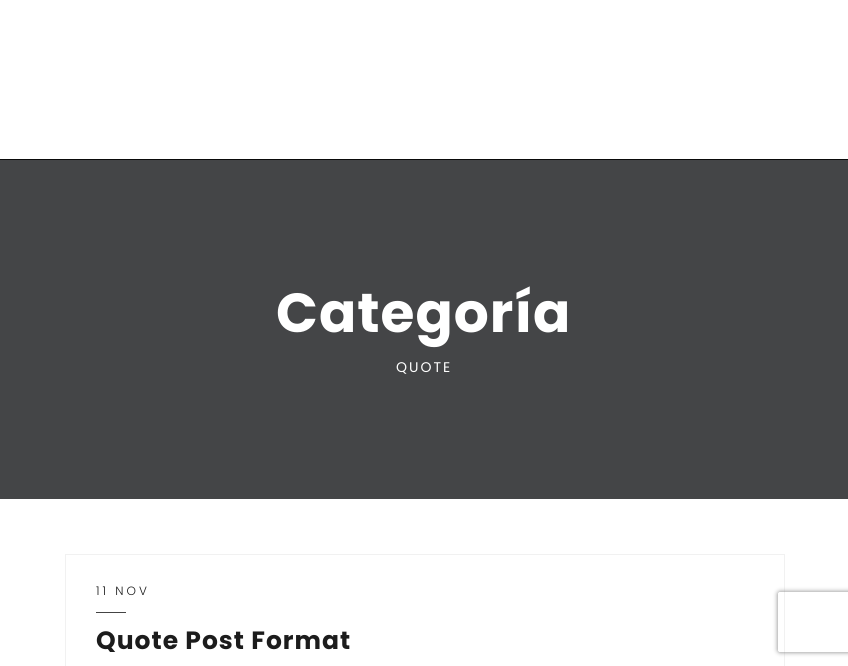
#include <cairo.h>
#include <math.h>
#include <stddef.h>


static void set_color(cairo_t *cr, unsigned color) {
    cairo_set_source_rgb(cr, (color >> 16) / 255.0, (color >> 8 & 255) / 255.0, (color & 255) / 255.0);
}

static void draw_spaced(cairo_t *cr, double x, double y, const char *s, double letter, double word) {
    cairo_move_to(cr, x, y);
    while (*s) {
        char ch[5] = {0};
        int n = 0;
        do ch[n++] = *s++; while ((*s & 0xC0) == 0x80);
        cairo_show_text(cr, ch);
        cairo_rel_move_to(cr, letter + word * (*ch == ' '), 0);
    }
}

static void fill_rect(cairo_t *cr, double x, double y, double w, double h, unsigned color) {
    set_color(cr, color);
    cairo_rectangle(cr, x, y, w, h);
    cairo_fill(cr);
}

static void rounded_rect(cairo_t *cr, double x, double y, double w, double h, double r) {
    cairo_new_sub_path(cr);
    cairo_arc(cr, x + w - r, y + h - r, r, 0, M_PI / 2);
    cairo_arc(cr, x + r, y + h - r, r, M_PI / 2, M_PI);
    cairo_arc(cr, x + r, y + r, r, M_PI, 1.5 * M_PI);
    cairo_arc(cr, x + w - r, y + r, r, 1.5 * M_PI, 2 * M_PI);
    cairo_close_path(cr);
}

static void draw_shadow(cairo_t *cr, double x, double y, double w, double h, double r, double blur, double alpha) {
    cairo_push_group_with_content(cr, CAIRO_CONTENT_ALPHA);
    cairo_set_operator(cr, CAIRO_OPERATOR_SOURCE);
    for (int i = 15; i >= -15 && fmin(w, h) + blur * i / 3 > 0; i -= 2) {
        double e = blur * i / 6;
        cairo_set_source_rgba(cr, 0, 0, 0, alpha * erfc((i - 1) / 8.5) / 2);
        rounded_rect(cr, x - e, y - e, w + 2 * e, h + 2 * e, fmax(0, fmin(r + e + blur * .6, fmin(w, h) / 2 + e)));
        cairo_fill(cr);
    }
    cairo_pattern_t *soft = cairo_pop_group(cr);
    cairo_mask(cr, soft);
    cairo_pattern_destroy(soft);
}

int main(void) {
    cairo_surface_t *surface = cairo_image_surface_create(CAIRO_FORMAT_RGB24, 848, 666);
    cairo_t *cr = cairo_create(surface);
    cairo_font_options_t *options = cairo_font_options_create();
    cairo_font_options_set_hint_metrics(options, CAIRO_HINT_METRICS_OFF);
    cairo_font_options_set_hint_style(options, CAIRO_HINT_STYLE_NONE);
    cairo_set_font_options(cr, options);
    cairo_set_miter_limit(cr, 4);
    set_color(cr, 0xFFFFFF);
    cairo_paint(cr);
    fill_rect(cr, 0, 159, 848, 1, 0x0A0A0A);
    fill_rect(cr, 0, 160, 848, 339, 0x444547);
    cairo_select_font_face(cr, "Poppins", CAIRO_FONT_SLANT_NORMAL, CAIRO_FONT_WEIGHT_BOLD);
    cairo_set_font_size(cr, 55);
    set_color(cr, 0xFFFFFF);
    draw_spaced(cr, 276, 332, "Categoría", 1, 0);
    cairo_select_font_face(cr, "Poppins", CAIRO_FONT_SLANT_NORMAL, CAIRO_FONT_WEIGHT_NORMAL);
    cairo_set_font_size(cr, 14);
    draw_spaced(cr, 396, 372, "QUOTE", 2, 0);
    cairo_rectangle(cr, 65.5, 554.5, 719, 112);
    set_color(cr, 0xF1F1F1);
    cairo_set_line_width(cr, 1);
    cairo_stroke(cr);
    cairo_select_font_face(cr, "Poppins Light", CAIRO_FONT_SLANT_NORMAL, CAIRO_FONT_WEIGHT_NORMAL);
    cairo_set_font_size(cr, 12);
    set_color(cr, 0x1C1C1C);
    draw_spaced(cr, 96, 595, "11 NOV", 3, 0);
    fill_rect(cr, 96, 612, 30, 1, 0x444444);
    cairo_select_font_face(cr, "Poppins", CAIRO_FONT_SLANT_NORMAL, CAIRO_FONT_WEIGHT_BOLD);
    cairo_set_font_size(cr, 25);
    set_color(cr, 0x1C1C1C);
    draw_spaced(cr, 96, 649, "Quote Post Format", 1, 0);
    cairo_save(cr);
    cairo_set_fill_rule(cr, CAIRO_FILL_RULE_EVEN_ODD);
    cairo_new_path(cr);
    cairo_move_to(cr, 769, 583);
    cairo_line_to(cr, 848, 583);
    cairo_line_to(cr, 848, 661);
    cairo_line_to(cr, 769, 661);
    cairo_close_path(cr);
    cairo_move_to(cr, 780, 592);
    cairo_line_to(cr, 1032, 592);
    cairo_curve_to(cr, 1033, 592, 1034, 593, 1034, 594);
    cairo_line_to(cr, 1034, 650);
    cairo_curve_to(cr, 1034, 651, 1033, 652, 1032, 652);
    cairo_line_to(cr, 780, 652);
    cairo_curve_to(cr, 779, 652, 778, 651, 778, 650);
    cairo_line_to(cr, 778, 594);
    cairo_curve_to(cr, 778, 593, 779, 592, 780, 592);
    cairo_close_path(cr);
    cairo_clip(cr);
    set_color(cr, 0x808080);
    draw_shadow(cr, 778, 592, 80, 60, 2, 2.5, 1);
    cairo_restore(cr);
    cairo_surface_write_to_png(surface, "output.png");
    cairo_font_options_destroy(options);
    cairo_destroy(cr);
    cairo_surface_destroy(surface);
    return 0;
}
